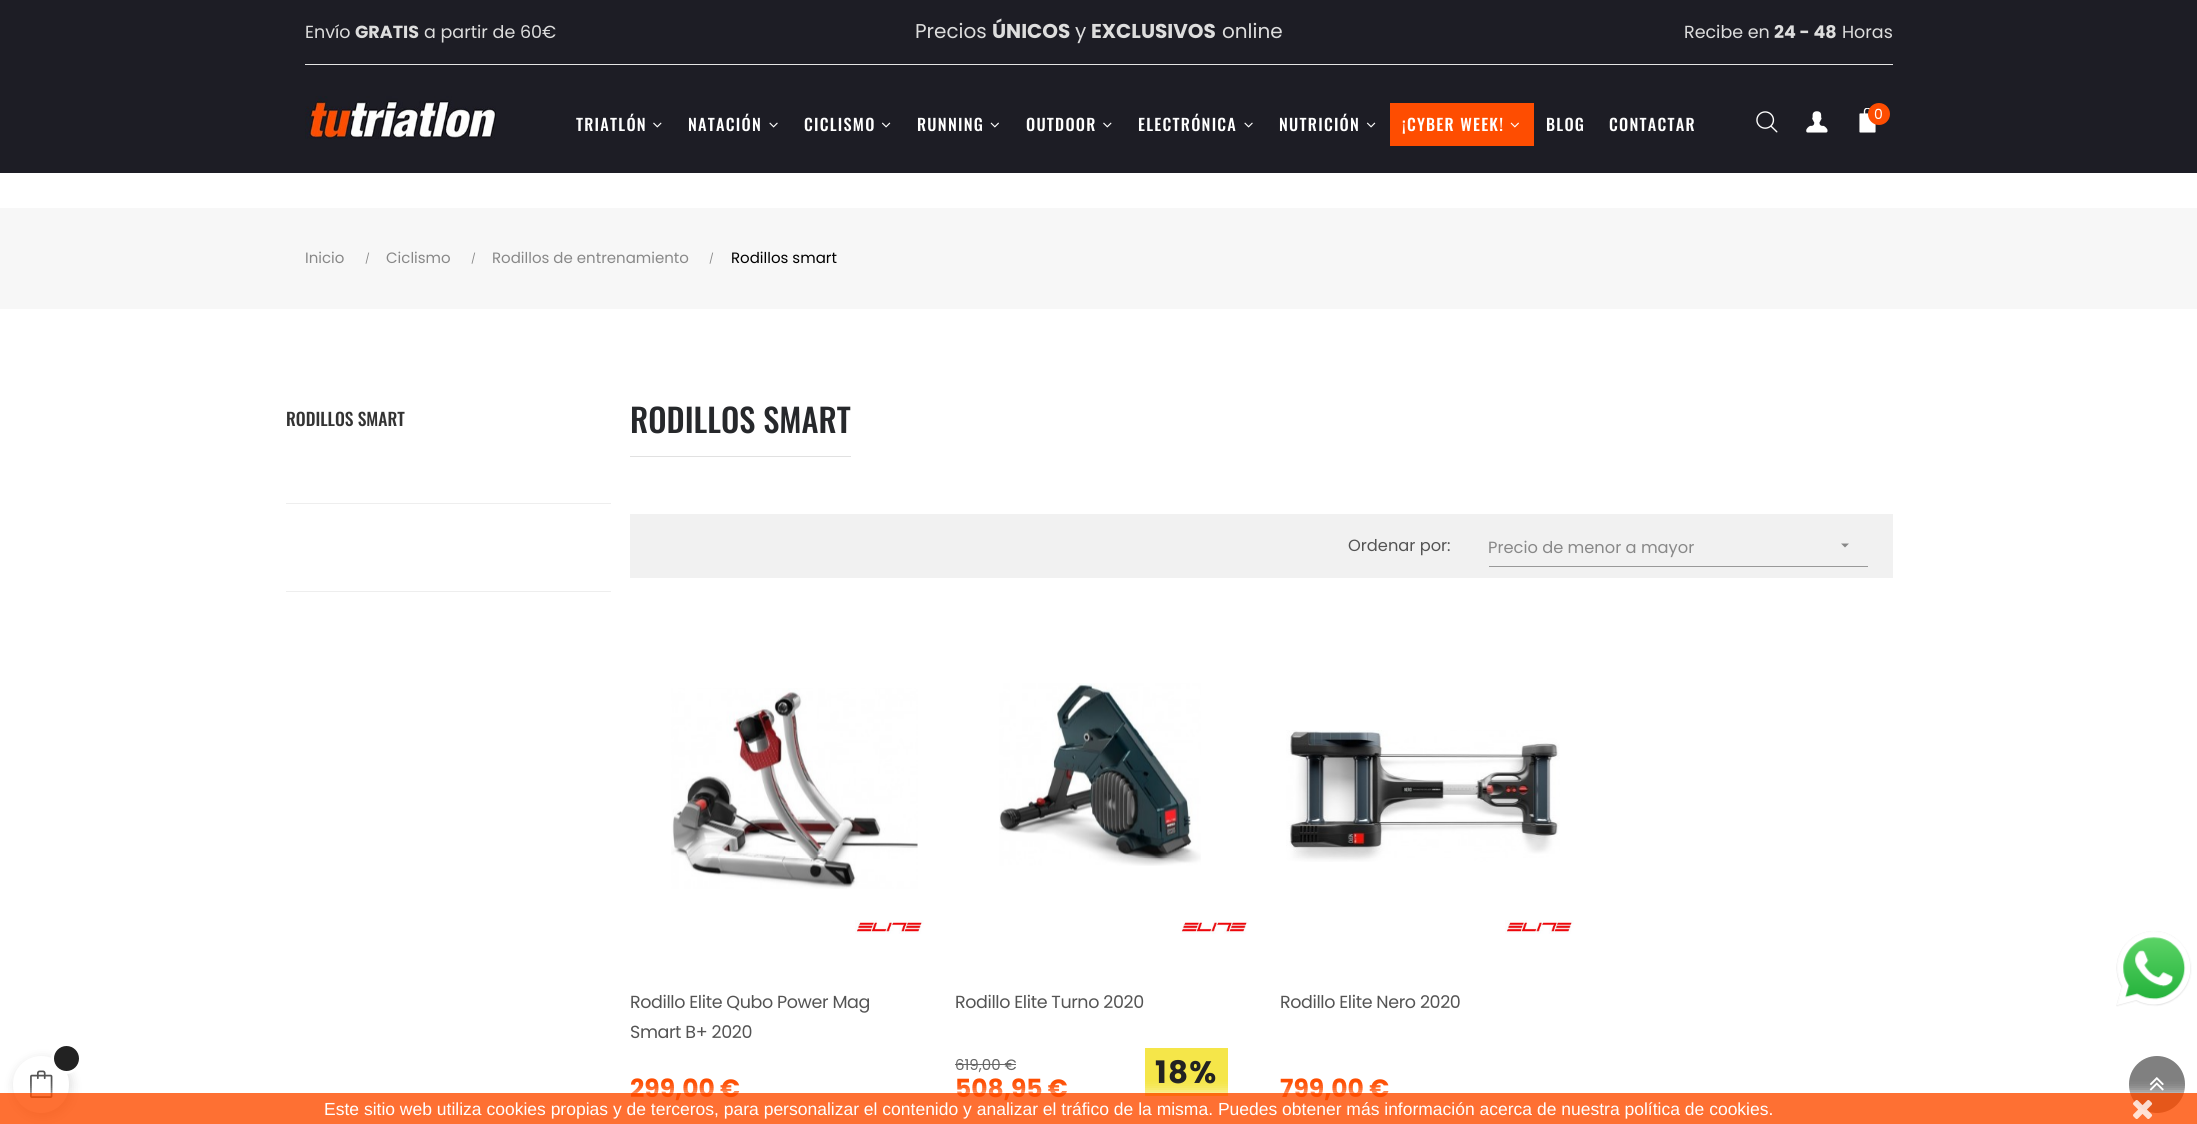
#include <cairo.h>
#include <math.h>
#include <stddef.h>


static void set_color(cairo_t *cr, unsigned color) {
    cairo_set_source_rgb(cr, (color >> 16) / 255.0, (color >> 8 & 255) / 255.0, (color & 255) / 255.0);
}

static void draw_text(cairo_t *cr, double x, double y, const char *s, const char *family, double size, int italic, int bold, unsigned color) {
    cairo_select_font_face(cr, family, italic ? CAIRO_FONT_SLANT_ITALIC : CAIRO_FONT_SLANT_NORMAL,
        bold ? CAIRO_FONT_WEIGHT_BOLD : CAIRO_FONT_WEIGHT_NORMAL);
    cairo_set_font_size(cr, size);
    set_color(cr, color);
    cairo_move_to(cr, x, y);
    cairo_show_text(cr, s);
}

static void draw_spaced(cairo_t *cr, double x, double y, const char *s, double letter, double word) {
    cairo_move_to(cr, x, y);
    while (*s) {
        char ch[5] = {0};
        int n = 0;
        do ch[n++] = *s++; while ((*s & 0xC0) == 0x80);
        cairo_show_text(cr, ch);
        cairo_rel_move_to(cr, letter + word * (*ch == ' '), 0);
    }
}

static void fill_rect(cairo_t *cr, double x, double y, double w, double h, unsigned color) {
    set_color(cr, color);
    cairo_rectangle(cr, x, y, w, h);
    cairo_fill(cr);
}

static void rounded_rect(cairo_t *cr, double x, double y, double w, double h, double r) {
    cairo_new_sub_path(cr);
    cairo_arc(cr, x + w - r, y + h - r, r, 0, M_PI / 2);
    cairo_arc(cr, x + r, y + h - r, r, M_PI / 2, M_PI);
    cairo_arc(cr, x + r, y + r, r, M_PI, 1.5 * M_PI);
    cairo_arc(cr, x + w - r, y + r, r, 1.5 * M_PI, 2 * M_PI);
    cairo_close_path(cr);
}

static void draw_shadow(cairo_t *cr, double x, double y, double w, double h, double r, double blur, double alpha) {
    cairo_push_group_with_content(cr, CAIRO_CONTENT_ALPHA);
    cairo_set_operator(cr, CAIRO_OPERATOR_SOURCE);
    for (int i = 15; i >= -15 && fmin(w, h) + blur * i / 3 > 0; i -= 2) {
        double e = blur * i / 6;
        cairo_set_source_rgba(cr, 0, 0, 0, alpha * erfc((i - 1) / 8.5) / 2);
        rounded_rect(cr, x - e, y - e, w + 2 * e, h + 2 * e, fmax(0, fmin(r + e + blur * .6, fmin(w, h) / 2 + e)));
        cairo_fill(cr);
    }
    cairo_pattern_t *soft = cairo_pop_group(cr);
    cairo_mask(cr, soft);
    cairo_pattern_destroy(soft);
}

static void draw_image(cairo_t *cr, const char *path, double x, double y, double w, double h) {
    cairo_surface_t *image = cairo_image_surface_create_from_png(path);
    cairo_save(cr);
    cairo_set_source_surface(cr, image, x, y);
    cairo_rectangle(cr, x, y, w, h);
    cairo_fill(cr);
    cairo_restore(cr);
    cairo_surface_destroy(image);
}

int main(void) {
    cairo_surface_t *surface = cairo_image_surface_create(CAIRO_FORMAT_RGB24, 2197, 1124);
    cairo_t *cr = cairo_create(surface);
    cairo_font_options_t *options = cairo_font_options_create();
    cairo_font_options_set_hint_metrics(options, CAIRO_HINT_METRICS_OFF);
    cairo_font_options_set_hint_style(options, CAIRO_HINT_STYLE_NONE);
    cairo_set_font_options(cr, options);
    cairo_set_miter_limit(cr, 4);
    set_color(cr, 0xFFFFFF);
    cairo_paint(cr);
    fill_rect(cr, 0, 0, 2197, 173, 0x1D1D25);
    fill_rect(cr, 305, 64, 1588, 1, 0xE5E5E5);
    draw_text(cr, 305, 38, "Envío", "Poppins", 17.5, 0, 0, 0xDDDDDD);
    draw_text(cr, 355, 38, "GRATIS", "Poppins", 17.5, 0, 1, 0xDDDDDD);
    draw_text(cr, 424, 38, "a partir de 60€", "Poppins", 17.5, 0, 0, 0xDDDDDD);
    draw_text(cr, 915, 38, "Precios", "Poppins", 20, 0, 0, 0xDDDDDD);
    draw_text(cr, 992, 38, "ÚNICOS", "Poppins", 20, 0, 1, 0xDDDDDD);
    draw_text(cr, 1075, 38, "y", "Poppins", 20, 0, 0, 0xDDDDDD);
    draw_text(cr, 1091, 38, "EXCLUSIVOS", "Poppins", 20, 0, 1, 0xDDDDDD);
    draw_text(cr, 1222, 38, "online", "Poppins", 20, 0, 0, 0xDDDDDD);
    draw_text(cr, 1684, 38, "Recibe en", "Poppins", 17.5, 0, 0, 0xDDDDDD);
    draw_text(cr, 1774, 38, "24 - 48", "Poppins", 17.5, 0, 1, 0xDDDDDD);
    draw_text(cr, 1842, 38, "Horas", "Poppins", 17.5, 0, 0, 0xDDDDDD);
    draw_image(cr, "assets/img1.png", 305, 96, 191, 43);
    cairo_select_font_face(cr, "Oswald Medium", CAIRO_FONT_SLANT_NORMAL, CAIRO_FONT_WEIGHT_NORMAL);
    cairo_set_font_size(cr, 16.25);
    set_color(cr, 0xFFFFFF);
    draw_spaced(cr, 576, 131, "TRIATLÓN", 1.25, 0);
    draw_image(cr, "assets/img2.png", 653, 122, 9, 6);
    draw_spaced(cr, 688, 131, "NATACIÓN", 1.25, 0);
    draw_image(cr, "assets/img3.png", 769, 122, 9, 6);
    draw_spaced(cr, 804, 131, "CICLISMO", 1.25, 0);
    draw_image(cr, "assets/img4.png", 881, 122, 10, 6);
    draw_spaced(cr, 917, 131, "RUNNING", 1.25, 0);
    draw_image(cr, "assets/img5.png", 990, 122, 9, 6);
    draw_spaced(cr, 1026, 131, "OUTDOOR", 1.25, 0);
    draw_image(cr, "assets/img2.png", 1103, 122, 9, 6);
    draw_spaced(cr, 1138, 131, "ELECTRÓNICA", 1.25, 0);
    draw_image(cr, "assets/img3.png", 1244, 122, 9, 6);
    draw_spaced(cr, 1279, 131, "NUTRICIÓN", 1.25, 0);
    draw_image(cr, "assets/img4.png", 1366, 122, 10, 6);
    fill_rect(cr, 1390, 103, 144, 43, 0xFE4D01);
    set_color(cr, 0xFFFFFF);
    draw_spaced(cr, 1402, 131, "¡CYBER WEEK!", 1.25, 0);
    draw_image(cr, "assets/img6.png", 1510, 122, 9, 6);
    draw_spaced(cr, 1546, 131, "BLOG", 1.25, 0);
    draw_spaced(cr, 1609, 131, "CONTACTAR", 1.25, 0);
    draw_image(cr, "assets/img7.png", 1756, 111, 22, 22);
    draw_image(cr, "assets/img8.png", 1806, 111, 22, 22);
    draw_image(cr, "assets/img9.png", 1859, 108, 17, 25);
    set_color(cr, 0xFE4D01);
    cairo_arc(cr, 1879, 114, 11, 0, 2 * M_PI);
    cairo_fill(cr);
    draw_text(cr, 1874, 119, "0", "Poppins", 14, 0, 0, 0xFFFFFF);
    fill_rect(cr, 0, 208, 2197, 101, 0xF7F7F7);
    draw_text(cr, 305, 263, "Inicio", "Poppins", 15, 0, 0, 0x888888);
    draw_text(cr, 365, 262, "/", "Poppins", 10, 0, 0, 0x888888);
    draw_text(cr, 386, 263, "Ciclismo", "Poppins", 15, 0, 0, 0x888888);
    draw_text(cr, 471, 262, "/", "Poppins", 10, 0, 0, 0x888888);
    draw_text(cr, 492, 263, "Rodillos de entrenamiento", "Poppins", 15, 0, 0, 0x888888);
    draw_text(cr, 709, 262, "/", "Poppins", 10, 0, 0, 0x888888);
    draw_text(cr, 731, 263, "Rodillos smart", "Poppins", 15, 0, 0, 0x000000);
    draw_text(cr, 286, 426, "RODILLOS SMART", "Oswald Medium", 17.5, 0, 0, 0x333333);
    fill_rect(cr, 286, 503, 325, 1, 0xEEEEEE);
    fill_rect(cr, 286, 591, 325, 1, 0xEEEEEE);
    fill_rect(cr, 630, 456, 221, 1, 0xE1E1E1);
    draw_text(cr, 630, 433, "RODILLOS SMART", "Oswald Medium", 32.5, 0, 0, 0x26282B);
    fill_rect(cr, 630, 514, 1263, 64, 0xF1F1F1);
    draw_text(cr, 1348, 551, "Ordenar por:", "Poppins", 16.25, 0, 0, 0x545454);
    fill_rect(cr, 1489, 566, 379, 1, 0x999999);
    draw_text(cr, 1488, 553, "Precio de menor a mayor", "Poppins", 16.25, 0, 0, 0x888888);
    cairo_new_path(cr);
    cairo_move_to(cr, 1841, 543.5);
    cairo_line_to(cr, 1849, 543.5);
    cairo_line_to(cr, 1845, 547.5);
    cairo_close_path(cr);
    cairo_fill(cr);
    draw_image(cr, "assets/img10.png", 671, 688, 247, 201);
    draw_image(cr, "assets/img11.png", 855, 920, 69, 14);
    cairo_set_font_size(cr, 17.5);
    set_color(cr, 0x545454);
    draw_spaced(cr, 630, 1008, "Rodillo Elite Qubo Power Mag", -0.4, 0);
    draw_spaced(cr, 630, 1038, "Smart B+ 2020", -0.4, 0);
    draw_text(cr, 630, 1097, "299,00 €", "Poppins", 25, 0, 1, 0xFE4D01);
    draw_image(cr, "assets/img12.png", 999, 683, 202, 183);
    draw_image(cr, "assets/img11.png", 1180, 920, 69, 14);
    cairo_select_font_face(cr, "Poppins", CAIRO_FONT_SLANT_NORMAL, CAIRO_FONT_WEIGHT_NORMAL);
    cairo_set_font_size(cr, 17.5);
    set_color(cr, 0x545454);
    draw_spaced(cr, 955, 1008, "Rodillo Elite Turno 2020", -0.4, 0);
    draw_text(cr, 955, 1070, "619,00 €", "Poppins", 15, 0, 0, 0x666666);
    fill_rect(cr, 955, 1064, 61, 1, 0x666666);
    draw_text(cr, 955, 1097, "508,95 €", "Poppins", 25, 0, 1, 0xFE4D01);
    fill_rect(cr, 1145, 1048, 83, 48, 0xF5E649);
    cairo_set_font_size(cr, 31);
    set_color(cr, 0x222222);
    draw_spaced(cr, 1155, 1083, "18%", 1.25, 0);
    draw_image(cr, "assets/img13.png", 1286, 730, 274, 132);
    draw_image(cr, "assets/img11.png", 1505, 920, 69, 14);
    cairo_select_font_face(cr, "Poppins", CAIRO_FONT_SLANT_NORMAL, CAIRO_FONT_WEIGHT_NORMAL);
    cairo_set_font_size(cr, 17.5);
    set_color(cr, 0x545454);
    draw_spaced(cr, 1280, 1008, "Rodillo Elite Nero 2020", -0.4, 0);
    draw_text(cr, 1280, 1097, "799,00 €", "Poppins", 25, 0, 1, 0xFE4D01);
    set_color(cr, 0x808080);
    rounded_rect(cr, 2129, 1056, 56, 57, 28);
    cairo_fill(cr);
    draw_image(cr, "assets/img14.png", 2149, 1077, 15, 14);
    set_color(cr, 0x000000);
    draw_shadow(cr, 15, 1060, 56, 56, 28, 6, 0.15);
    set_color(cr, 0xFFFFFF);
    rounded_rect(cr, 13, 1056, 56, 57, 28);
    cairo_fill(cr);
    draw_image(cr, "assets/img17.png", 30, 1070, 23, 28);
    cairo_save(cr);
    cairo_rectangle(cr, 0, 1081, 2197, 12);
    cairo_clip(cr);
    set_color(cr, 0xFFFFFF);
    draw_shadow(cr, 0, 1093, 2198, 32, 0, 6, 0.8);
    cairo_restore(cr);
    cairo_set_source_rgba(cr, 0.996, 0.302, 0.004, 0.8);
    cairo_rectangle(cr, 0, 1093, 2197, 31);
    cairo_fill(cr);
    draw_text(cr, 324, 1115, "Este sitio web utiliza cookies propias y de terceros, para personalizar el contenido y analizar el tráfico de la misma. Puedes obtener más información acerca de nuestra política de cookies.", "Liberation Sans", 17.5, 0, 0, 0xFFFFFF);
    draw_image(cr, "assets/img15.png", 2133, 1100, 20, 19);
    draw_image(cr, "assets/img16.png", 2116, 931, 76, 76);
    cairo_arc(cr, 66, 1059, 13.5, 0, 2 * M_PI);
    cairo_set_line_width(cr, 3);
    cairo_stroke(cr);
    set_color(cr, 0x222222);
    cairo_arc(cr, 66.5, 1058.5, 12.5, 0, 2 * M_PI);
    cairo_fill(cr);
    cairo_surface_write_to_png(surface, "output.png");
    cairo_font_options_destroy(options);
    cairo_destroy(cr);
    cairo_surface_destroy(surface);
    return 0;
}
